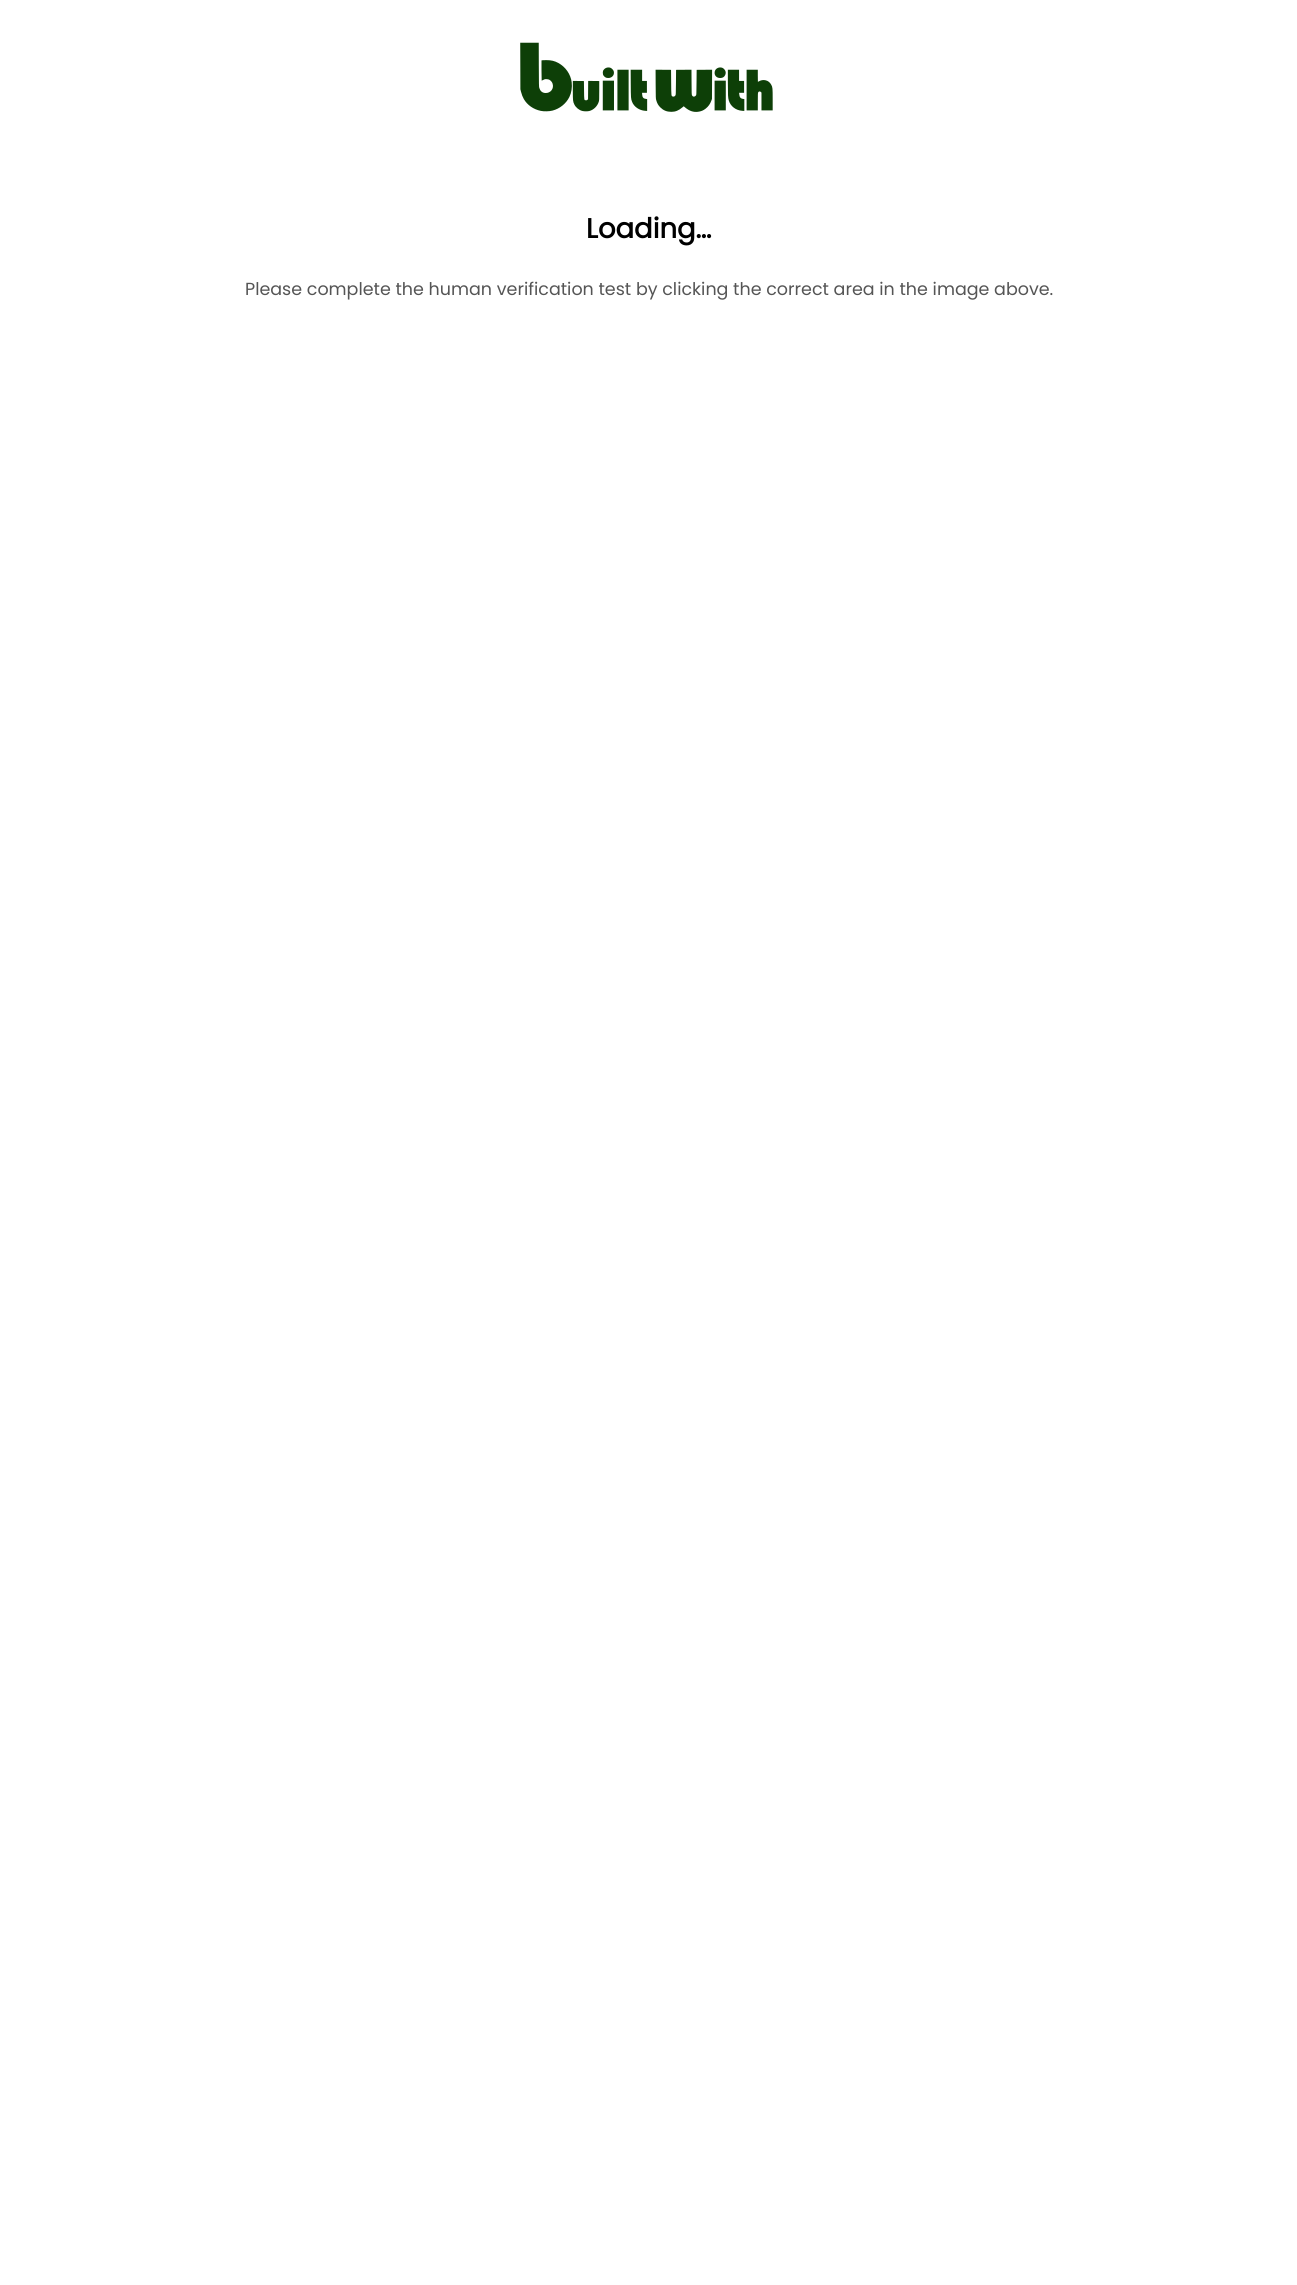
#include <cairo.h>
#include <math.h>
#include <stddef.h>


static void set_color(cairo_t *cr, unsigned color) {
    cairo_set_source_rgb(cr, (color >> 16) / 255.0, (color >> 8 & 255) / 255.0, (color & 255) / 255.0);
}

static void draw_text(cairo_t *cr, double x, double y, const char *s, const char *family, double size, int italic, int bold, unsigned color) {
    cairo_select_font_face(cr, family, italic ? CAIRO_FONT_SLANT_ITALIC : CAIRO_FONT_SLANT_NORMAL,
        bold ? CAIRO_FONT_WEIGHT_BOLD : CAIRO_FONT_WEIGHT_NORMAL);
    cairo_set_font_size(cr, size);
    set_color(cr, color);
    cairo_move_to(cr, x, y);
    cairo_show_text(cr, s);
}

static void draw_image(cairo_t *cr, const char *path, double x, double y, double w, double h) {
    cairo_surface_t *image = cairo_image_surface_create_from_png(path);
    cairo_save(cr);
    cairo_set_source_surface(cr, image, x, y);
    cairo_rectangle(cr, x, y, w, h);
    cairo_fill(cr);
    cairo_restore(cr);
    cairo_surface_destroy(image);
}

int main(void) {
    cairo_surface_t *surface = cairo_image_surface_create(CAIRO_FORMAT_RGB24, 1297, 2285);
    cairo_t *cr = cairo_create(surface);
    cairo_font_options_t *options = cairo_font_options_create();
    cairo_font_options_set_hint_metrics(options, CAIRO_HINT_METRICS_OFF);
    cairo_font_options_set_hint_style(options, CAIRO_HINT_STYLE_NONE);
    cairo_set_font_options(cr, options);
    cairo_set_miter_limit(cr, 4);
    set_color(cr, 0xFFFFFF);
    cairo_paint(cr);
    draw_image(cr, "assets/img1.png", 520, 42, 253, 70);
    draw_text(cr, 586, 238, "Loading…", "Poppins", 27.5, 0, 1, 0x000000);
    draw_text(cr, 245, 295, "Please complete the human verification test by clicking the correct area in the image above.", "Poppins", 17.5, 0, 0, 0x555555);
    cairo_surface_write_to_png(surface, "output.png");
    cairo_font_options_destroy(options);
    cairo_destroy(cr);
    cairo_surface_destroy(surface);
    return 0;
}
